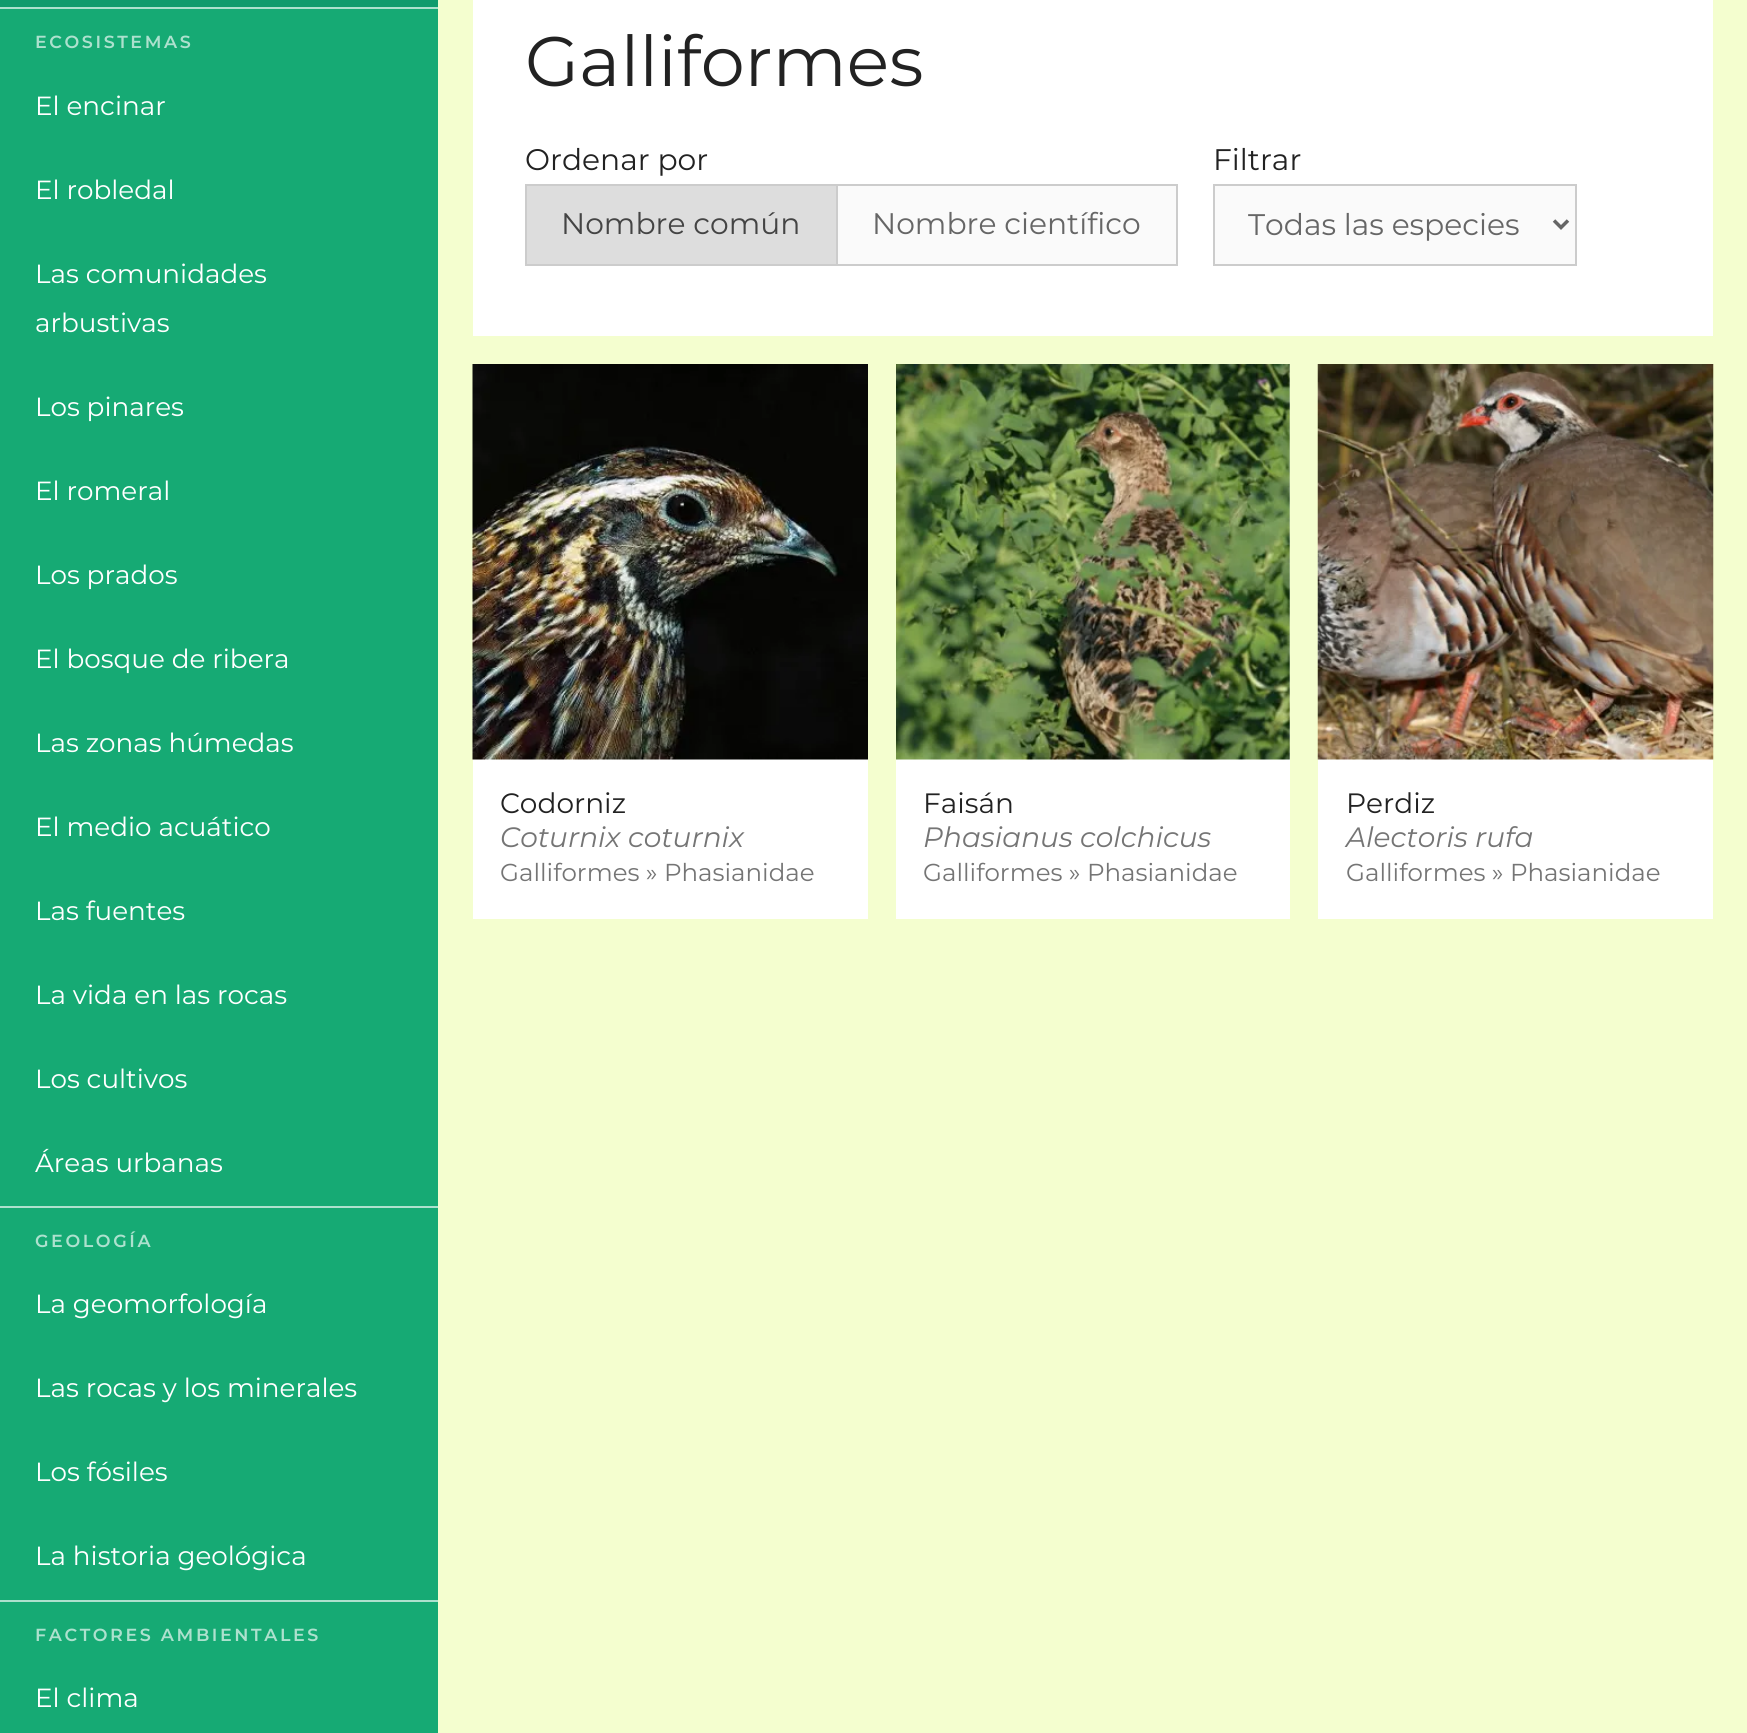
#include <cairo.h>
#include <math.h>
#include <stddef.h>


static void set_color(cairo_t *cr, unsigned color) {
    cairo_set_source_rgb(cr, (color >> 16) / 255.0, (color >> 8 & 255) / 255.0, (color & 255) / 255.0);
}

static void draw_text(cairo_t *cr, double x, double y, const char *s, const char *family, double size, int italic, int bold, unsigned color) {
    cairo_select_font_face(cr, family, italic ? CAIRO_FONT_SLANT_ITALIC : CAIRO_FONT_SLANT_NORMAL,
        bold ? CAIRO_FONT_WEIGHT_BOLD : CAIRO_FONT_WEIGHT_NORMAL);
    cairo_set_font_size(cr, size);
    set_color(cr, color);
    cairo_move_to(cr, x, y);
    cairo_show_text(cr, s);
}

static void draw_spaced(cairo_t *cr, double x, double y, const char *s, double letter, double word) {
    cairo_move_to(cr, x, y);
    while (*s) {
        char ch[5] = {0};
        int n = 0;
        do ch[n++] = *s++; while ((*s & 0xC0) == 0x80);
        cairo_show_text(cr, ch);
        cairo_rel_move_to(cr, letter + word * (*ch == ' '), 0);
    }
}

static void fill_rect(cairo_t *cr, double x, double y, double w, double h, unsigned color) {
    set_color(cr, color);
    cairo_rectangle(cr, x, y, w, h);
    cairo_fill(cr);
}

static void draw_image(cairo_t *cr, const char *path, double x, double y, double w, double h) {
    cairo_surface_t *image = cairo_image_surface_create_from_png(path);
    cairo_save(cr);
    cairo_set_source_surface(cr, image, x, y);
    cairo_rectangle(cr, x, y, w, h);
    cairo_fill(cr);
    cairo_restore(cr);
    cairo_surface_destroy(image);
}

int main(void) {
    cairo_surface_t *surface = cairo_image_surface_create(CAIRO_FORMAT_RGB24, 1747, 1733);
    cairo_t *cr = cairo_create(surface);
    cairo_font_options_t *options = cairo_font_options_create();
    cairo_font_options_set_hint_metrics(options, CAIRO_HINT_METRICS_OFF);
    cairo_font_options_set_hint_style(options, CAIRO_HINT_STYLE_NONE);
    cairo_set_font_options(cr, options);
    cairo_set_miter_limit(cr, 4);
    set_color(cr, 0xF4FECF);
    cairo_paint(cr);
    fill_rect(cr, 0, 9, 438, 1724, 0x16AA74);
    fill_rect(cr, 0, 0, 438, 7, 0x119B6D);
    fill_rect(cr, 0, 7, 438, 2, 0xADE1CE);
    cairo_select_font_face(cr, "Montserrat SemiBold", CAIRO_FONT_SLANT_NORMAL, CAIRO_FONT_WEIGHT_NORMAL);
    cairo_set_font_size(cr, 17.5);
    draw_spaced(cr, 35, 48, "ECOSISTEMAS", 2.6, 0);
    draw_text(cr, 35, 115, "El encinar", "Montserrat", 26.25, 0, 0, 0xFFFFFF);
    draw_text(cr, 35, 199, "El robledal", "Montserrat", 26.25, 0, 0, 0xFFFFFF);
    draw_text(cr, 35, 283, "Las comunidades", "Montserrat", 26.25, 0, 0, 0xFFFFFF);
    draw_text(cr, 35, 332, "arbustivas", "Montserrat", 26.25, 0, 0, 0xFFFFFF);
    draw_text(cr, 35, 416, "Los pinares", "Montserrat", 26.25, 0, 0, 0xFFFFFF);
    draw_text(cr, 35, 500, "El romeral", "Montserrat", 26.25, 0, 0, 0xFFFFFF);
    draw_text(cr, 35, 584, "Los prados", "Montserrat", 26.25, 0, 0, 0xFFFFFF);
    draw_text(cr, 35, 668, "El bosque de ribera", "Montserrat", 26.25, 0, 0, 0xFFFFFF);
    draw_text(cr, 35, 752, "Las zonas húmedas", "Montserrat", 26.25, 0, 0, 0xFFFFFF);
    draw_text(cr, 35, 836, "El medio acuático", "Montserrat", 26.25, 0, 0, 0xFFFFFF);
    draw_text(cr, 35, 920, "Las fuentes", "Montserrat", 26.25, 0, 0, 0xFFFFFF);
    draw_text(cr, 35, 1004, "La vida en las rocas", "Montserrat", 26.25, 0, 0, 0xFFFFFF);
    draw_text(cr, 35, 1088, "Los cultivos", "Montserrat", 26.25, 0, 0, 0xFFFFFF);
    draw_text(cr, 35, 1172, "Áreas urbanas", "Montserrat", 26.25, 0, 0, 0xFFFFFF);
    fill_rect(cr, 0, 1206, 438, 2, 0xADE1CE);
    cairo_select_font_face(cr, "Montserrat SemiBold", CAIRO_FONT_SLANT_NORMAL, CAIRO_FONT_WEIGHT_NORMAL);
    cairo_set_font_size(cr, 17.5);
    draw_spaced(cr, 35, 1247, "GEOLOGÍA", 2.6, 0);
    draw_text(cr, 35, 1313, "La geomorfología", "Montserrat", 26.25, 0, 0, 0xFFFFFF);
    draw_text(cr, 35, 1397, "Las rocas y los minerales", "Montserrat", 26.25, 0, 0, 0xFFFFFF);
    draw_text(cr, 35, 1481, "Los fósiles", "Montserrat", 26.25, 0, 0, 0xFFFFFF);
    draw_text(cr, 35, 1565, "La historia geológica", "Montserrat", 26.25, 0, 0, 0xFFFFFF);
    fill_rect(cr, 0, 1600, 438, 2, 0xADE1CE);
    cairo_select_font_face(cr, "Montserrat SemiBold", CAIRO_FONT_SLANT_NORMAL, CAIRO_FONT_WEIGHT_NORMAL);
    cairo_set_font_size(cr, 17.5);
    draw_spaced(cr, 35, 1641, "FACTORES AMBIENTALES", 2.6, 0);
    draw_text(cr, 35, 1707, "El clima", "Montserrat", 26.25, 0, 0, 0xFFFFFF);
    fill_rect(cr, 473, 0, 1240, 336, 0xFFFFFF);
    draw_text(cr, 525, 86, "Galliformes", "Montserrat", 70, 0, 0, 0x222222);
    draw_text(cr, 525, 170, "Ordenar por", "Montserrat", 29.75, 0, 0, 0x222222);
    set_color(cr, 0xDDDDDD);
    cairo_rectangle(cr, 526, 185, 311, 80);
    cairo_fill_preserve(cr);
    set_color(cr, 0xCCCCCC);
    cairo_stroke(cr);
    draw_text(cr, 561, 234, "Nombre común", "Montserrat", 29.75, 0, 0, 0x444444);
    fill_rect(cr, 838, 186, 338, 78, 0xFAFAFA);
    fill_rect(cr, 838, 184, 340, 2, 0xCCCCCC);
    fill_rect(cr, 1176, 184, 2, 82, 0xCCCCCC);
    fill_rect(cr, 838, 264, 340, 2, 0xCCCCCC);
    draw_text(cr, 872, 234, "Nombre científico", "Montserrat", 29.75, 0, 0, 0x666666);
    draw_text(cr, 1213, 170, "Filtrar", "Montserrat", 29.75, 0, 0, 0x222222);
    set_color(cr, 0xFAFAFA);
    cairo_rectangle(cr, 1214, 185, 362, 80);
    cairo_fill_preserve(cr);
    set_color(cr, 0xCCCCCC);
    cairo_stroke(cr);
    cairo_new_path(cr);
    cairo_move_to(cr, 1554, 220.5);
    cairo_line_to(cr, 1561, 227.5);
    cairo_line_to(cr, 1568, 220.5);
    set_color(cr, 0x666666);
    cairo_set_line_width(cr, 3.5);
    cairo_stroke(cr);
    draw_text(cr, 1248, 235, "Todas las especies", "Montserrat", 29.75, 0, 0, 0x666666);
    fill_rect(cr, 473, 759, 395, 160, 0xFFFFFF);
    draw_image(cr, "assets/img1.png", 472, 364, 396, 396);
    draw_text(cr, 500, 813, "Codorniz", "Montserrat", 28, 0, 0, 0x222222);
    draw_text(cr, 500, 847, "Coturnix coturnix", "Montserrat", 28, 1, 0, 0x757575);
    draw_text(cr, 500, 881, "Galliformes » Phasianidae", "Montserrat", 24.5, 0, 0, 0x757575);
    fill_rect(cr, 896, 364, 394, 555, 0xFFFFFF);
    draw_image(cr, "assets/img2.png", 896, 364, 394, 396);
    draw_text(cr, 923, 813, "Faisán", "Montserrat", 28, 0, 0, 0x222222);
    draw_text(cr, 923, 847, "Phasianus colchicus", "Montserrat", 28, 1, 0, 0x757575);
    draw_text(cr, 923, 881, "Galliformes » Phasianidae", "Montserrat", 24.5, 0, 0, 0x757575);
    fill_rect(cr, 1318, 759, 395, 160, 0xFFFFFF);
    draw_image(cr, "assets/img3.png", 1317, 364, 397, 396);
    draw_text(cr, 1346, 813, "Perdiz", "Montserrat", 28, 0, 0, 0x222222);
    draw_text(cr, 1346, 847, "Alectoris rufa", "Montserrat", 28, 1, 0, 0x757575);
    draw_text(cr, 1346, 881, "Galliformes » Phasianidae", "Montserrat", 24.5, 0, 0, 0x757575);
    cairo_surface_write_to_png(surface, "output.png");
    cairo_font_options_destroy(options);
    cairo_destroy(cr);
    cairo_surface_destroy(surface);
    return 0;
}
